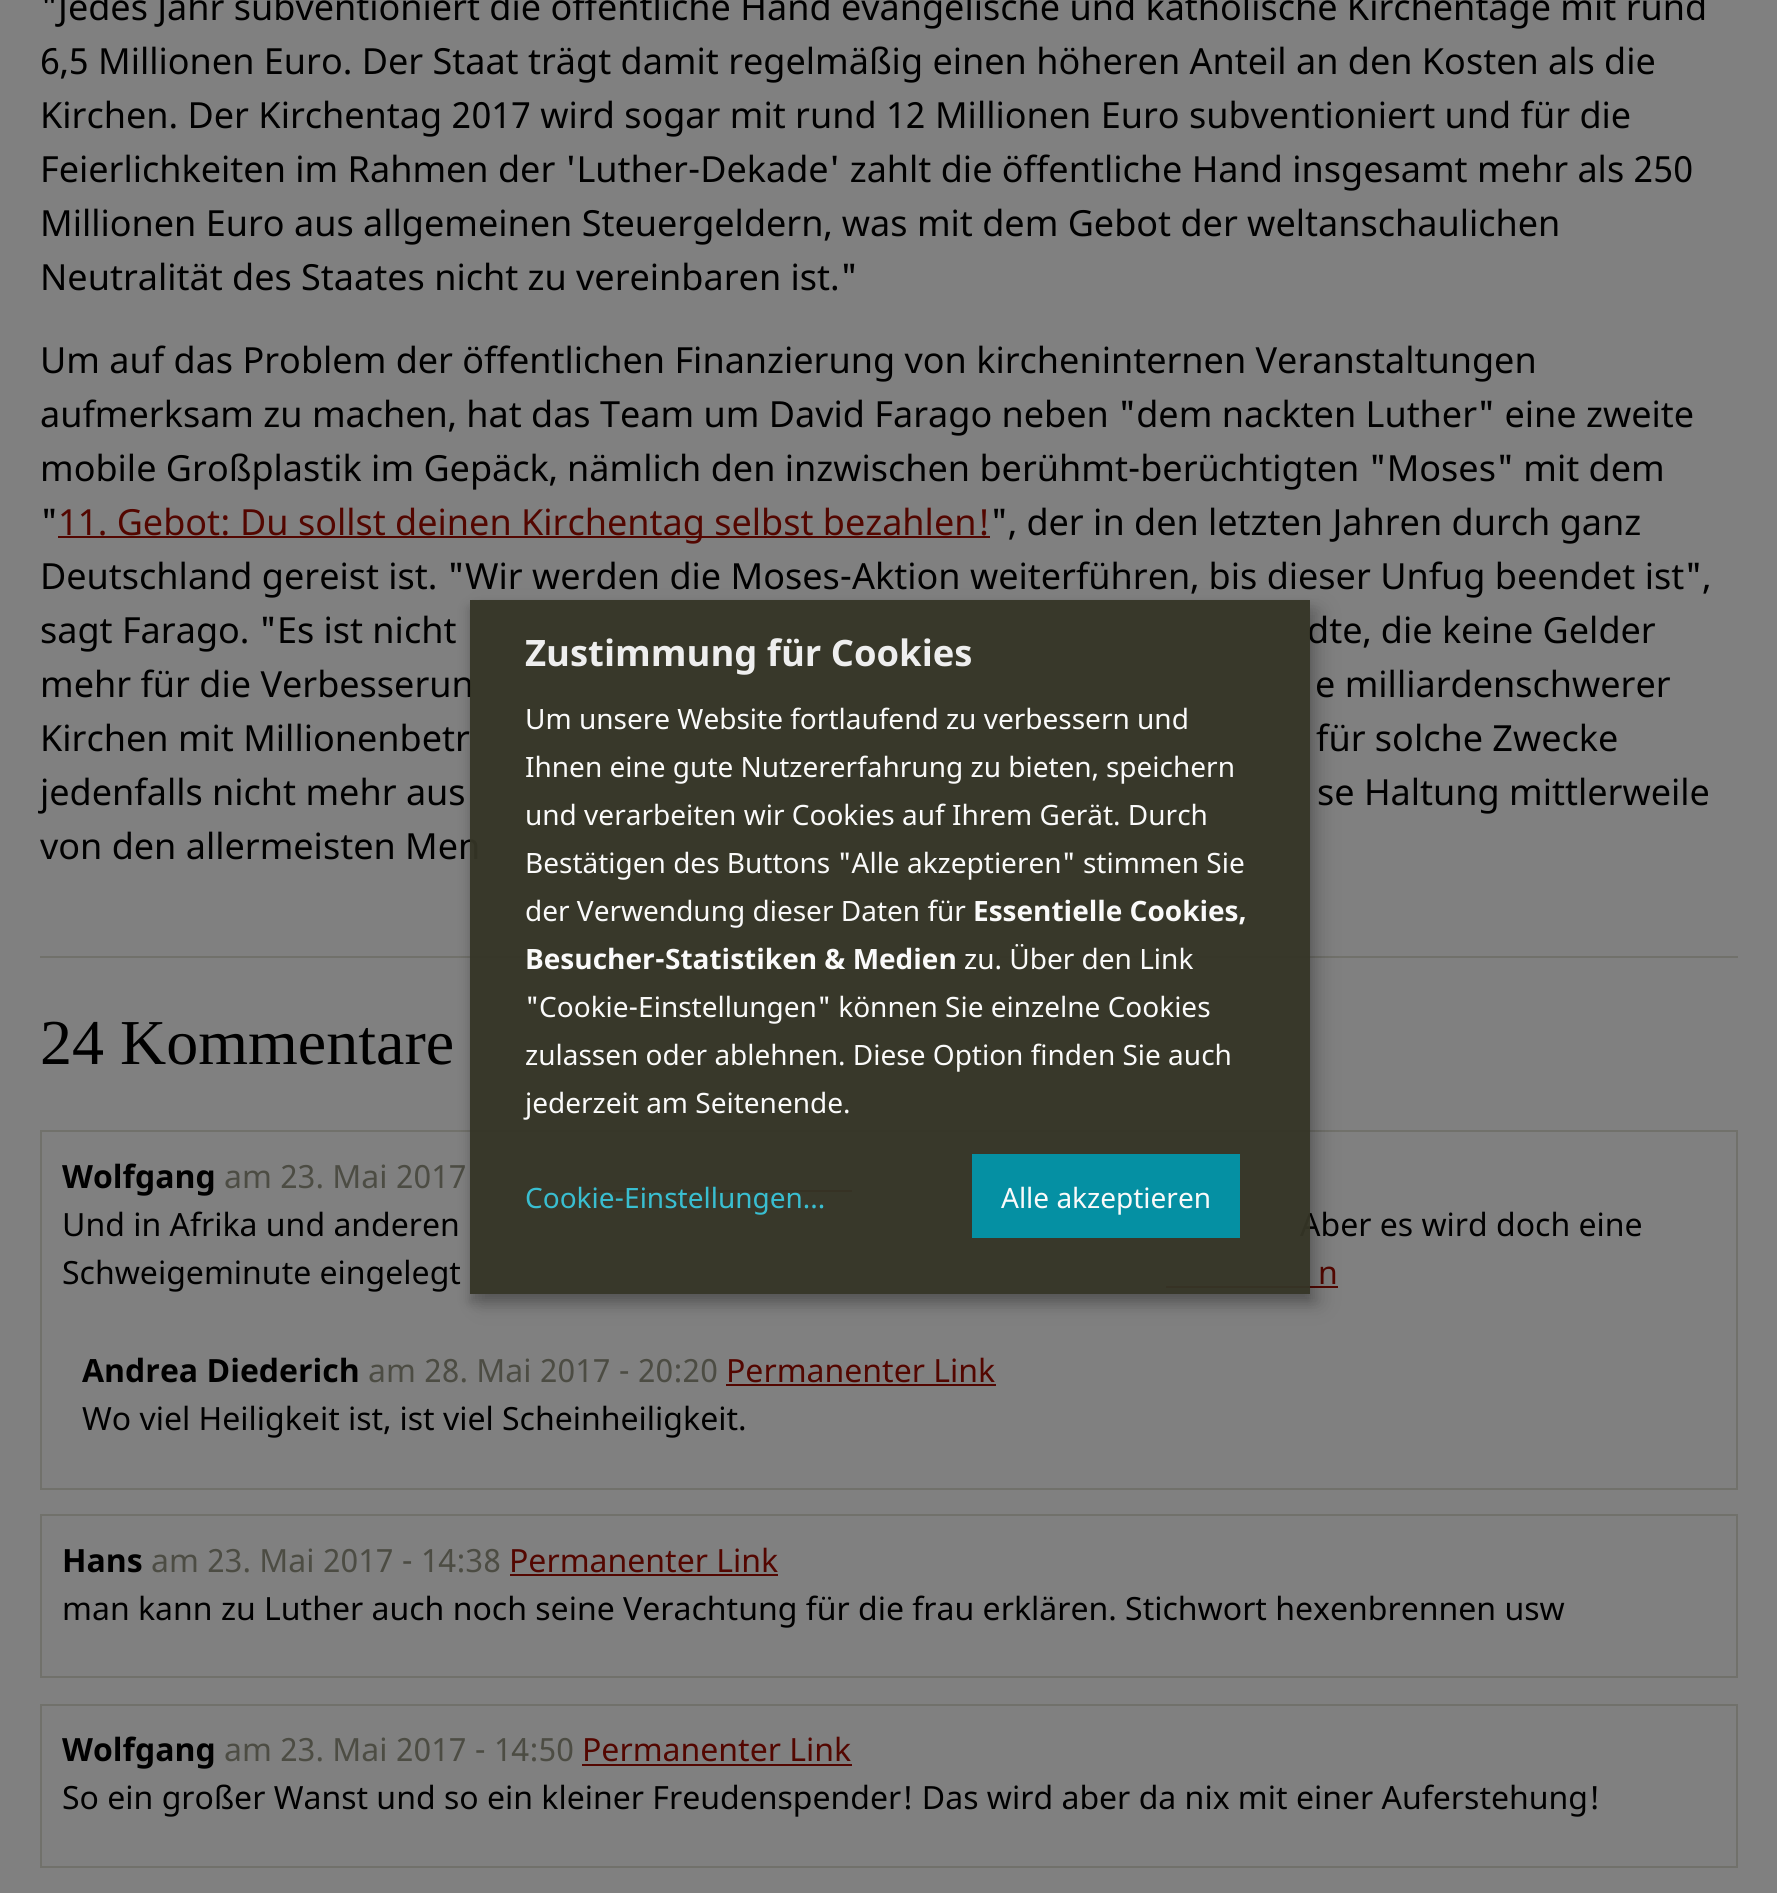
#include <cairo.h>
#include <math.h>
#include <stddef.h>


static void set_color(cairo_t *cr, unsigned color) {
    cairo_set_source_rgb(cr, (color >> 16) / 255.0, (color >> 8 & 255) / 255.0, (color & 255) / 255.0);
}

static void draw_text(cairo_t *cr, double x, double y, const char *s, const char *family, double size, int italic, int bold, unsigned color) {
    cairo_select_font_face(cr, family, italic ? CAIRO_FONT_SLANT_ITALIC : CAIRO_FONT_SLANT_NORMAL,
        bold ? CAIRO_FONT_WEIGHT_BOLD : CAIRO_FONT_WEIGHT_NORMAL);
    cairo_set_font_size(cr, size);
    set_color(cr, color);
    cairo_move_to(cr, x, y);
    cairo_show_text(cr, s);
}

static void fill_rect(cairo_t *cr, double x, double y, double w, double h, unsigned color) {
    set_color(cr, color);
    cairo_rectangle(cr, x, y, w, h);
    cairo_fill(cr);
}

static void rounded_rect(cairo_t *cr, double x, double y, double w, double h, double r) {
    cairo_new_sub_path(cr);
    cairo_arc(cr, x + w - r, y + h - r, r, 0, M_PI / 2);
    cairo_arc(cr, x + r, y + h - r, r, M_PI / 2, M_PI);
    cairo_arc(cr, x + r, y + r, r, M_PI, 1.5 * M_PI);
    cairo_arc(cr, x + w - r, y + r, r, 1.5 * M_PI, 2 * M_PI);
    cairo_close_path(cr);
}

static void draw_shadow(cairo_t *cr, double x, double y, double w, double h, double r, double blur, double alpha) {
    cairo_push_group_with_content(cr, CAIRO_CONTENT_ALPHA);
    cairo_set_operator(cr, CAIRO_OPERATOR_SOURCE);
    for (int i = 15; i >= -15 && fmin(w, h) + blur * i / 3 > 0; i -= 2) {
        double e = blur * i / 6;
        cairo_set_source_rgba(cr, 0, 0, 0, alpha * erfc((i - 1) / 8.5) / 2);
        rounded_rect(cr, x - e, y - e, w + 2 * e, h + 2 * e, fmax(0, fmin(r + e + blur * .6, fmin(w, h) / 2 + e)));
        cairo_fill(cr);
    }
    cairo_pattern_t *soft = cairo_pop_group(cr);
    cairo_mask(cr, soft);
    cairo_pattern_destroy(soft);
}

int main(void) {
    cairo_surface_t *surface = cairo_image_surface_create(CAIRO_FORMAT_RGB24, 1777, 1893);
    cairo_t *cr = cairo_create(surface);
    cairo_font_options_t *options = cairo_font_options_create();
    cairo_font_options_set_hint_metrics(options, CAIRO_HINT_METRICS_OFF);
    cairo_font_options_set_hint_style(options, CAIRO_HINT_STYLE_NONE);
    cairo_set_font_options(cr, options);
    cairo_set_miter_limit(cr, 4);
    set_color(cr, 0x808080);
    cairo_paint(cr);
    draw_text(cr, 40, 20, "\"Jedes Jahr subventioniert die öffentliche Hand evangelische und katholische Kirchentage mit rund", "Noto Sans", 36, 0, 0, 0x000000);
    draw_text(cr, 40, 74, "6,5 Millionen Euro. Der Staat trägt damit regelmäßig einen höheren Anteil an den Kosten als die", "Noto Sans", 36, 0, 0, 0x000000);
    draw_text(cr, 40, 128, "Kirchen. Der Kirchentag 2017 wird sogar mit rund 12 Millionen Euro subventioniert und für die", "Noto Sans", 36, 0, 0, 0x000000);
    draw_text(cr, 40, 182, "Feierlichkeiten im Rahmen der 'Luther-Dekade' zahlt die öffentliche Hand insgesamt mehr als 250", "Noto Sans", 36, 0, 0, 0x000000);
    draw_text(cr, 40, 236, "Millionen Euro aus allgemeinen Steuergeldern, was mit dem Gebot der weltanschaulichen", "Noto Sans", 36, 0, 0, 0x000000);
    draw_text(cr, 40, 290, "Neutralität des Staates nicht zu vereinbaren ist.\"", "Noto Sans", 36, 0, 0, 0x000000);
    draw_text(cr, 40, 373, "Um auf das Problem der öffentlichen Finanzierung von kircheninternen Veranstaltungen", "Noto Sans", 36, 0, 0, 0x000000);
    draw_text(cr, 40, 427, "aufmerksam zu machen, hat das Team um David Farago neben \"dem nackten Luther\" eine zweite", "Noto Sans", 36, 0, 0, 0x000000);
    draw_text(cr, 40, 481, "mobile Großplastik im Gepäck, nämlich den inzwischen berühmt-berüchtigten \"Moses\" mit dem", "Noto Sans", 36, 0, 0, 0x000000);
    draw_text(cr, 40, 535, "\"", "Noto Sans", 36, 0, 0, 0x000000);
    fill_rect(cr, 58, 536, 932, 2, 0x530600);
    draw_text(cr, 58, 535, "11. Gebot: Du sollst deinen Kirchentag selbst bezahlen!", "Noto Sans", 36, 0, 0, 0x530600);
    draw_text(cr, 990, 535, "\", der in den letzten Jahren durch ganz", "Noto Sans", 36, 0, 0, 0x000000);
    draw_text(cr, 40, 589, "Deutschland gereist ist. \"Wir werden die Moses-Aktion weiterführen, bis dieser Unfug beendet ist\",", "Noto Sans", 36, 0, 0, 0x000000);
    draw_text(cr, 40, 643, "sagt Farago. \"Es ist nicht", "Noto Sans", 36, 0, 0, 0x000000);
    draw_text(cr, 1307, 643, "dte, die keine Gelder", "Noto Sans", 36, 0, 0, 0x000000);
    draw_text(cr, 40, 697, "mehr für die Verbesserun", "Noto Sans", 36, 0, 0, 0x000000);
    draw_text(cr, 1315, 697, "e milliardenschwerer", "Noto Sans", 36, 0, 0, 0x000000);
    draw_text(cr, 40, 751, "Kirchen mit Millionenbetr", "Noto Sans", 36, 0, 0, 0x000000);
    draw_text(cr, 1316, 751, "für solche Zwecke", "Noto Sans", 36, 0, 0, 0x000000);
    draw_text(cr, 40, 805, "jedenfalls nicht mehr aus", "Noto Sans", 36, 0, 0, 0x000000);
    draw_text(cr, 1317, 805, "se Haltung mittlerweile", "Noto Sans", 36, 0, 0, 0x000000);
    draw_text(cr, 40, 859, "von den allermeisten Men", "Noto Sans", 36, 0, 0, 0x000000);
    fill_rect(cr, 40, 956, 1698, 2, 0x71716B);
    draw_text(cr, 40, 1064, "24 Kommentare", "Liberation Serif", 64, 0, 0, 0x000000);
    cairo_rectangle(cr, 41, 1131, 1696, 196);
    set_color(cr, 0x71716B);
    cairo_stroke(cr);
    draw_text(cr, 62, 1188, "Wolfgang", "Noto Sans", 32, 0, 1, 0x000000);
    draw_text(cr, 224, 1188, "am 23. Mai 2017", "Noto Sans", 32, 0, 0, 0x4C4C43);
    fill_rect(cr, 582, 1190, 270, 2, 0x530600);
    draw_text(cr, 62, 1236, "Und in Afrika und anderen", "Noto Sans", 32, 0, 0, 0x000000);
    draw_text(cr, 1300, 1236, "Aber es wird doch eine", "Noto Sans", 32, 0, 0, 0x000000);
    draw_text(cr, 62, 1284, "Schweigeminute eingelegt", "Noto Sans", 32, 0, 0, 0x000000);
    draw_text(cr, 1318, 1284, "n", "Noto Sans", 32, 0, 0, 0x530600);
    fill_rect(cr, 1166, 1286, 172, 2, 0x530600);
    fill_rect(cr, 40, 1326, 1698, 2, 0x808080);
    fill_rect(cr, 1736, 1326, 2, 164, 0x71716B);
    fill_rect(cr, 40, 1488, 1698, 2, 0x71716B);
    fill_rect(cr, 40, 1326, 2, 164, 0x71716B);
    draw_text(cr, 82, 1382, "Andrea Diederich", "Noto Sans", 32, 0, 1, 0x000000);
    draw_text(cr, 368, 1382, "am 28. Mai 2017 - 20:20", "Noto Sans", 32, 0, 0, 0x4C4C43);
    draw_text(cr, 726, 1382, "Permanenter Link", "Noto Sans", 32, 0, 0, 0x530600);
    fill_rect(cr, 726, 1384, 270, 2, 0x530600);
    draw_text(cr, 82, 1430, "Wo viel Heiligkeit ist, ist viel Scheinheiligkeit.", "Noto Sans", 32, 0, 0, 0x000000);
    cairo_rectangle(cr, 41, 1515, 1696, 162);
    set_color(cr, 0x71716B);
    cairo_stroke(cr);
    draw_text(cr, 62, 1572, "Hans", "Noto Sans", 32, 0, 1, 0x000000);
    draw_text(cr, 151, 1572, "am 23. Mai 2017 - 14:38", "Noto Sans", 32, 0, 0, 0x4C4C43);
    draw_text(cr, 509, 1572, "Permanenter Link", "Noto Sans", 32, 0, 0, 0x530600);
    fill_rect(cr, 510, 1574, 268, 2, 0x530600);
    draw_text(cr, 62, 1620, "man kann zu Luther auch noch seine Verachtung für die frau erklären. Stichwort hexenbrennen usw", "Noto Sans", 32, 0, 0, 0x000000);
    cairo_rectangle(cr, 41, 1705, 1696, 162);
    set_color(cr, 0x71716B);
    cairo_stroke(cr);
    draw_text(cr, 62, 1761, "Wolfgang", "Noto Sans", 32, 0, 1, 0x000000);
    draw_text(cr, 224, 1761, "am 23. Mai 2017 - 14:50", "Noto Sans", 32, 0, 0, 0x4C4C43);
    draw_text(cr, 582, 1761, "Permanenter Link", "Noto Sans", 32, 0, 0, 0x530600);
    fill_rect(cr, 582, 1764, 270, 2, 0x530600);
    draw_text(cr, 62, 1809, "So ein großer Wanst und so ein kleiner Freudenspender! Das wird aber da nix mit einer Auferstehung!", "Noto Sans", 32, 0, 0, 0x000000);
    cairo_save(cr);
    cairo_set_fill_rule(cr, CAIRO_FILL_RULE_EVEN_ODD);
    cairo_new_path(cr);
    cairo_move_to(cr, 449, 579);
    cairo_line_to(cr, 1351, 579);
    cairo_line_to(cr, 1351, 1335);
    cairo_line_to(cr, 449, 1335);
    cairo_close_path(cr);
    cairo_move_to(cr, 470, 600);
    cairo_line_to(cr, 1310, 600);
    cairo_line_to(cr, 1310, 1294);
    cairo_line_to(cr, 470, 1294);
    cairo_close_path(cr);
    cairo_clip(cr);
    set_color(cr, 0x000000);
    draw_shadow(cr, 480, 610, 840, 694, 0, 10, 0.19);
    cairo_restore(cr);
    cairo_save(cr);
    cairo_set_fill_rule(cr, CAIRO_FILL_RULE_EVEN_ODD);
    cairo_new_path(cr);
    cairo_move_to(cr, 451, 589);
    cairo_line_to(cr, 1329, 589);
    cairo_line_to(cr, 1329, 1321);
    cairo_line_to(cr, 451, 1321);
    cairo_close_path(cr);
    cairo_move_to(cr, 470, 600);
    cairo_line_to(cr, 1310, 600);
    cairo_line_to(cr, 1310, 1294);
    cairo_line_to(cr, 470, 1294);
    cairo_close_path(cr);
    cairo_clip(cr);
    set_color(cr, 0x000000);
    draw_shadow(cr, 470, 608, 840, 694, 0, 6, 0.2);
    cairo_restore(cr);
    cairo_set_source_rgba(cr, 0.208, 0.208, 0.149, 0.95);
    cairo_rectangle(cr, 470, 600, 840, 694);
    cairo_fill(cr);
    draw_text(cr, 525, 666, "Zustimmung für Cookies", "Noto Sans", 36.4, 0, 1, 0xEEEEEE);
    draw_text(cr, 525, 729, "Um unsere Website fortlaufend zu verbessern und", "Noto Sans", 28, 0, 0, 0xFAFAFA);
    draw_text(cr, 525, 777, "Ihnen eine gute Nutzererfahrung zu bieten, speichern", "Noto Sans", 28, 0, 0, 0xFAFAFA);
    draw_text(cr, 525, 825, "und verarbeiten wir Cookies auf Ihrem Gerät. Durch", "Noto Sans", 28, 0, 0, 0xFAFAFA);
    draw_text(cr, 525, 873, "Bestätigen des Buttons \"Alle akzeptieren\" stimmen Sie", "Noto Sans", 28, 0, 0, 0xFAFAFA);
    draw_text(cr, 525, 921, "der Verwendung dieser Daten für", "Noto Sans", 28, 0, 0, 0xFAFAFA);
    draw_text(cr, 973, 921, "Essentielle Cookies,", "Noto Sans", 28, 0, 1, 0xFAFAFA);
    draw_text(cr, 525, 969, "Besucher-Statistiken & Medien", "Noto Sans", 28, 0, 1, 0xFAFAFA);
    draw_text(cr, 964, 969, "zu. Über den Link", "Noto Sans", 28, 0, 0, 0xFAFAFA);
    draw_text(cr, 525, 1017, "\"Cookie-Einstellungen\" können Sie einzelne Cookies", "Noto Sans", 28, 0, 0, 0xFAFAFA);
    draw_text(cr, 525, 1065, "zulassen oder ablehnen. Diese Option finden Sie auch", "Noto Sans", 28, 0, 0, 0xFAFAFA);
    draw_text(cr, 525, 1113, "jederzeit am Seitenende.", "Noto Sans", 28, 0, 0, 0xFAFAFA);
    draw_text(cr, 525, 1208, "Cookie-Einstellungen...", "Noto Sans", 28, 0, 0, 0x39BED1);
    fill_rect(cr, 972, 1154, 268, 84, 0x0590A3);
    draw_text(cr, 1001, 1208, "Alle akzeptieren", "Noto Sans", 28, 0, 0, 0xFAFAFA);
    cairo_surface_write_to_png(surface, "output.png");
    cairo_font_options_destroy(options);
    cairo_destroy(cr);
    cairo_surface_destroy(surface);
    return 0;
}
